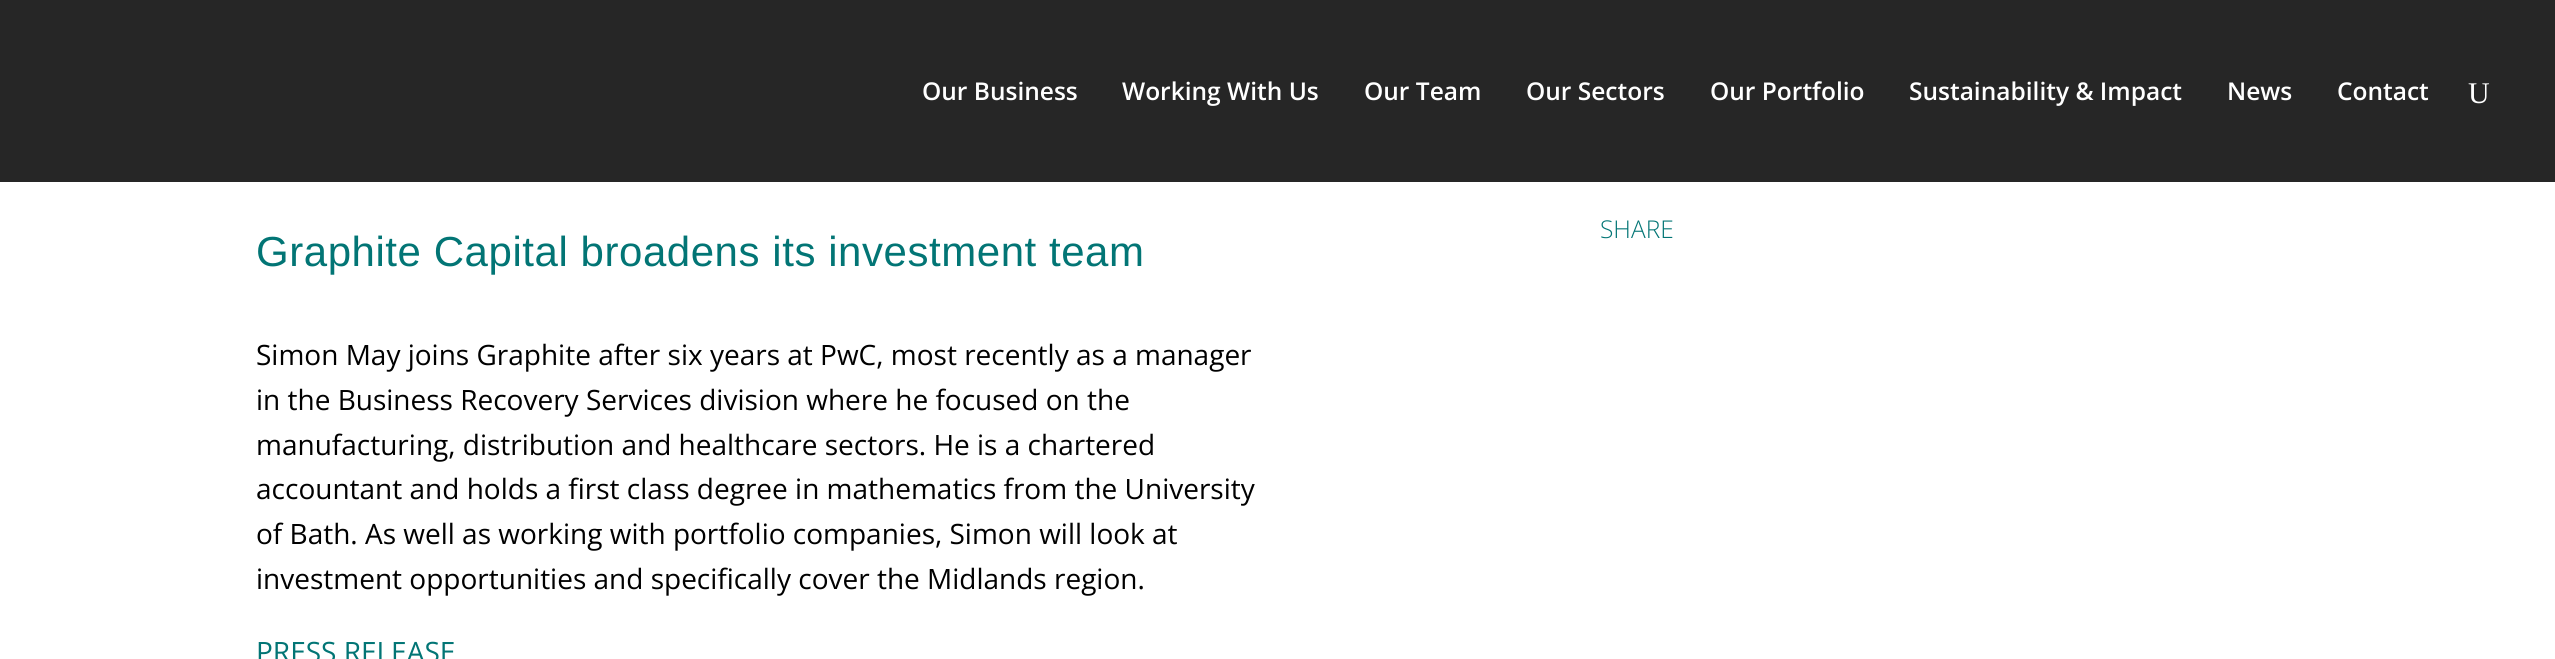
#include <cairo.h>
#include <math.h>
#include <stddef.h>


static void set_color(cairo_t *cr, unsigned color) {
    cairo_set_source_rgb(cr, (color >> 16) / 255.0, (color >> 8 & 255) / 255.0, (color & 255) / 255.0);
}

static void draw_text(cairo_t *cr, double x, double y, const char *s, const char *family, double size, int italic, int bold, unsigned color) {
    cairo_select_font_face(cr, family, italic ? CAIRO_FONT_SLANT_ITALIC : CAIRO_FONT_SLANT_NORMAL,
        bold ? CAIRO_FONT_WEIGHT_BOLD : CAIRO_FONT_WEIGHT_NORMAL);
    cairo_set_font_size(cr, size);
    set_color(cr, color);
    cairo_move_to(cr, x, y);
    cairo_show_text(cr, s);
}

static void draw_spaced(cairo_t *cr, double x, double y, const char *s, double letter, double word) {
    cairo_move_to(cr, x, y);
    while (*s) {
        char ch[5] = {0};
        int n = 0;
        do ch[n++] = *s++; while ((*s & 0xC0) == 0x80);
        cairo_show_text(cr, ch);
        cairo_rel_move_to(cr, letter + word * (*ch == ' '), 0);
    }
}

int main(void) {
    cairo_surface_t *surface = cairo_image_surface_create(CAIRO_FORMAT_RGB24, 2555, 659);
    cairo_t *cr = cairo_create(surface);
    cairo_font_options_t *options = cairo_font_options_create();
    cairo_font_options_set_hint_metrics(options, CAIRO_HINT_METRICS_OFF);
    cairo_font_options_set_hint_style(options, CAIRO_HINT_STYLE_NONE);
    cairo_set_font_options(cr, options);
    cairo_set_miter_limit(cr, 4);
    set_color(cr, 0xFFFFFF);
    cairo_paint(cr);
    cairo_set_source_rgba(cr, 0, 0, 0, 0.85);
    cairo_rectangle(cr, 0, 0, 2555, 182);
    cairo_fill(cr);
    draw_text(cr, 922, 100, "Our Business", "Open Sans SemiBold", 24.5, 0, 0, 0xFFFFFF);
    draw_text(cr, 1122, 100, "Working With Us", "Open Sans SemiBold", 24.5, 0, 0, 0xFFFFFF);
    draw_text(cr, 1364, 100, "Our Team", "Open Sans SemiBold", 24.5, 0, 0, 0xFFFFFF);
    draw_text(cr, 1526, 100, "Our Sectors", "Open Sans SemiBold", 24.5, 0, 0, 0xFFFFFF);
    draw_text(cr, 1710, 100, "Our Portfolio", "Open Sans SemiBold", 24.5, 0, 0, 0xFFFFFF);
    draw_text(cr, 1909, 100, "Sustainability & Impact", "Open Sans SemiBold", 24.5, 0, 0, 0xFFFFFF);
    draw_text(cr, 2227, 100, "News", "Open Sans SemiBold", 24.5, 0, 0, 0xFFFFFF);
    draw_text(cr, 2337, 100, "Contact", "Open Sans SemiBold", 24.5, 0, 0, 0xFFFFFF);
    draw_text(cr, 2468, 103, "U", "Liberation Serif", 30, 0, 0, 0xFFFFFF);
    draw_text(cr, 1600, 238, "SHARE", "Open Sans Light", 24.5, 0, 0, 0x027575);
    cairo_select_font_face(cr, "Liberation Sans", CAIRO_FONT_SLANT_NORMAL, CAIRO_FONT_WEIGHT_NORMAL);
    cairo_set_font_size(cr, 42);
    draw_spaced(cr, 256, 266, "Graphite Capital broadens its investment team", 0.55, 0);
    draw_text(cr, 256, 365, "Simon May joins Graphite after six years at PwC, most recently as a manager", "Open Sans", 28, 0, 0, 0x000000);
    draw_text(cr, 256, 410, "in the Business Recovery Services division where he focused on the", "Open Sans", 28, 0, 0, 0x000000);
    draw_text(cr, 256, 455, "manufacturing, distribution and healthcare sectors. He is a chartered", "Open Sans", 28, 0, 0, 0x000000);
    draw_text(cr, 256, 499, "accountant and holds a first class degree in mathematics from the University", "Open Sans", 28, 0, 0, 0x000000);
    draw_text(cr, 256, 544, "of Bath. As well as working with portfolio companies, Simon will look at", "Open Sans", 28, 0, 0, 0x000000);
    draw_text(cr, 256, 589, "investment opportunities and specifically cover the Midlands region.", "Open Sans", 28, 0, 0, 0x000000);
    draw_text(cr, 256, 662, "PRESS RELEASE", "Open Sans", 28, 0, 0, 0x027575);
    cairo_surface_write_to_png(surface, "output.png");
    cairo_font_options_destroy(options);
    cairo_destroy(cr);
    cairo_surface_destroy(surface);
    return 0;
}
